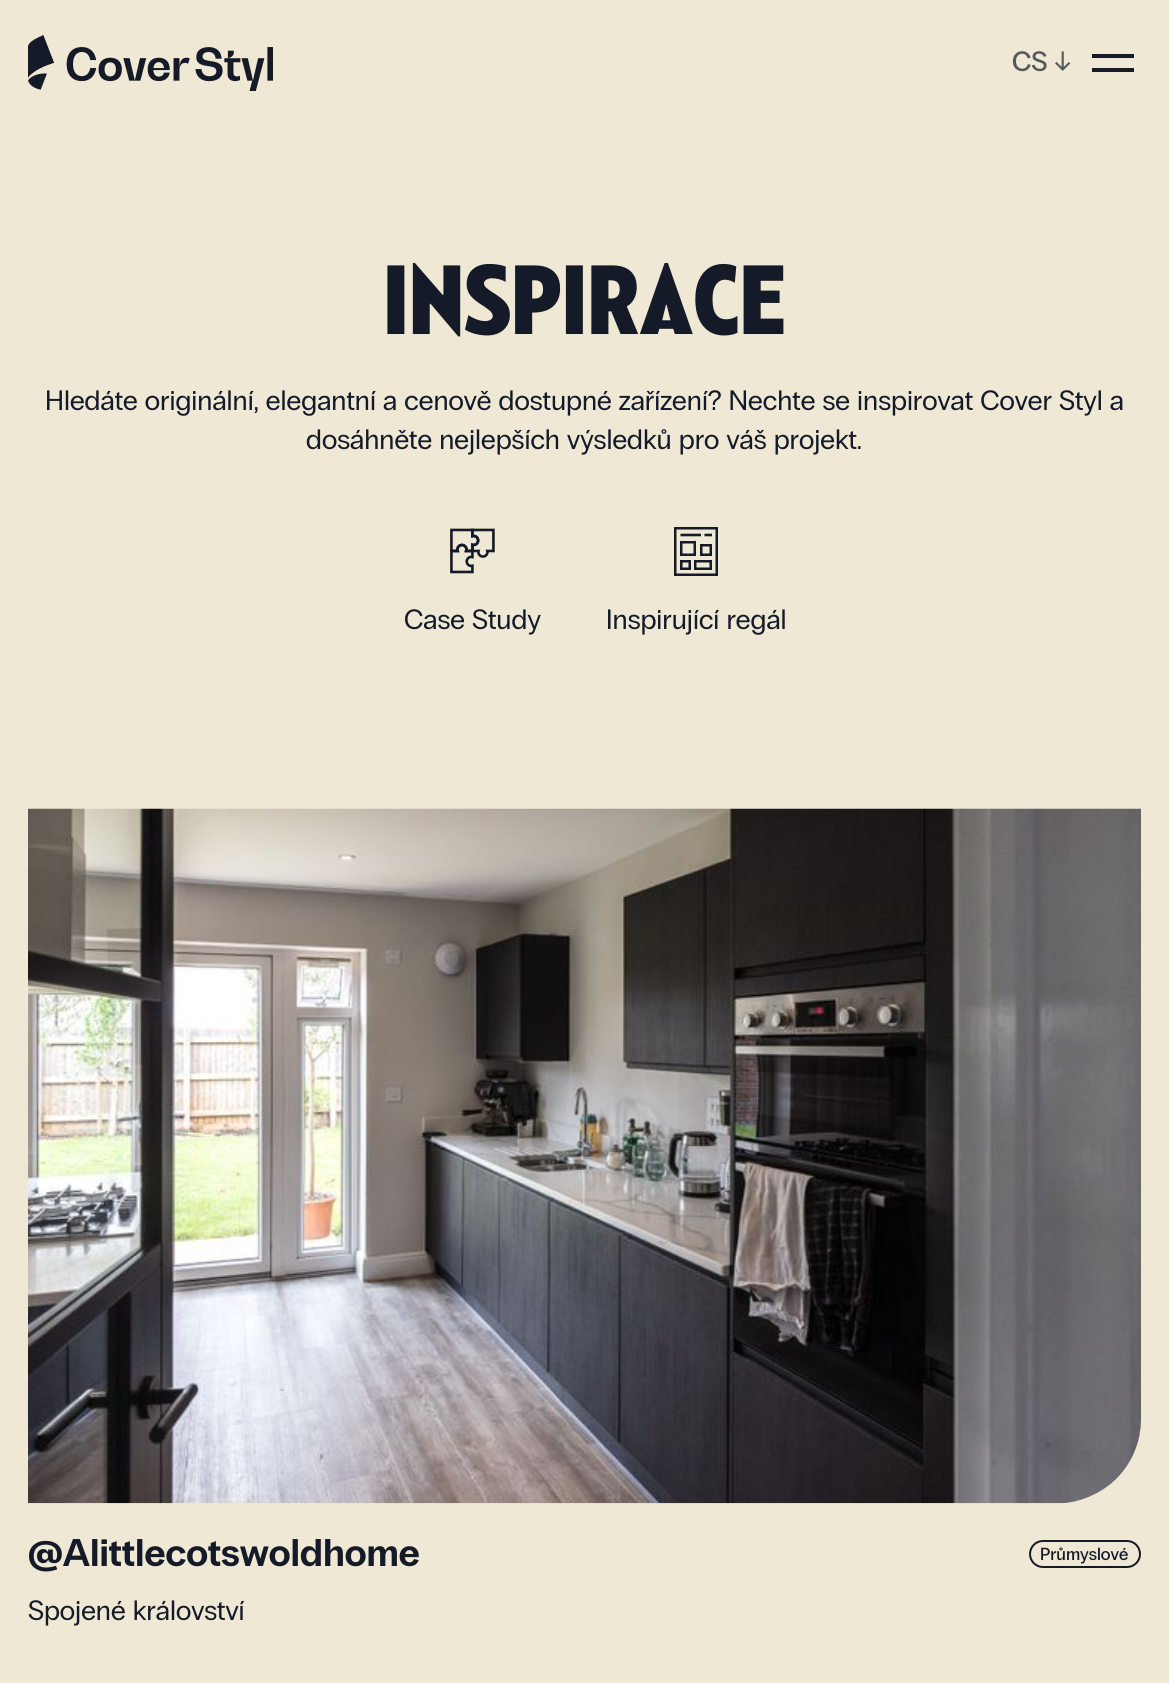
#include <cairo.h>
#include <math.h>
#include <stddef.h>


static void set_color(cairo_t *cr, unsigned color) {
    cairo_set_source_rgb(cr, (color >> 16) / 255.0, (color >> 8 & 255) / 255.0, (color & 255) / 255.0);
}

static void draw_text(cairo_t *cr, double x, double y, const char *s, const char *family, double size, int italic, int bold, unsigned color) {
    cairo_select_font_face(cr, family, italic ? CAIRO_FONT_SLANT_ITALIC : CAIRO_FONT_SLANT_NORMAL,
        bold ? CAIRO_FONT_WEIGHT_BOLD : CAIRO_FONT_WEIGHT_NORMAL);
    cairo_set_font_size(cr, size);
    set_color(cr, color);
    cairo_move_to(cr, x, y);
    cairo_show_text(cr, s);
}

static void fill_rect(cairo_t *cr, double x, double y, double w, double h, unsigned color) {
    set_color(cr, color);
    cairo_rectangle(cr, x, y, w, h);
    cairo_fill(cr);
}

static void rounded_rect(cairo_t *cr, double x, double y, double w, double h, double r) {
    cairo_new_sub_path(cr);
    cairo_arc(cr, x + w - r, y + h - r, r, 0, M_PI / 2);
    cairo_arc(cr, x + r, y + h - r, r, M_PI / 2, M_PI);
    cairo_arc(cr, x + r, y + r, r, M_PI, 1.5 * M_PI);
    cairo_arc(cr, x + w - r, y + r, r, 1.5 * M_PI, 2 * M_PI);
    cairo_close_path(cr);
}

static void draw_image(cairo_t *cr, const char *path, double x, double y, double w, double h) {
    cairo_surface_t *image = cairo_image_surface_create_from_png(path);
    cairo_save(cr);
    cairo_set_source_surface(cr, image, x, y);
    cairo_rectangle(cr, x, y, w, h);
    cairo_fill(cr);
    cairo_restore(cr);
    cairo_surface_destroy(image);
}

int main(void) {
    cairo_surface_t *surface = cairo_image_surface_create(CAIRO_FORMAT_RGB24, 1169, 1683);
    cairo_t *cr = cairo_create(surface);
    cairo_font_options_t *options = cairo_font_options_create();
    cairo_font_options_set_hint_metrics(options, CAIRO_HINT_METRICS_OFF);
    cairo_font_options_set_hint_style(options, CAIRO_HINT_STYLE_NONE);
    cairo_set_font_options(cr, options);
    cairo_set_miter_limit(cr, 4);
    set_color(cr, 0xEEE8D5);
    cairo_paint(cr);
    draw_image(cr, "assets/img1.png", 28, 35, 245, 56);
    draw_text(cr, 1012, 71, "CS ↓", "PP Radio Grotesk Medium", 28, 0, 0, 0x56585C);
    fill_rect(cr, 1092, 54, 42, 4, 0x151A28);
    fill_rect(cr, 1092, 68, 42, 4, 0x151A28);
    draw_text(cr, 383, 334, "INSPIRACE", "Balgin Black", 98, 0, 0, 0x151A28);
    draw_text(cr, 45, 410, "Hledáte originální, elegantní a cenově dostupné zařízení? Nechte se inspirovat Cover Styl a", "PP Radio Grotesk", 28, 0, 0, 0x151A28);
    draw_text(cr, 306, 449, "dosáhněte nejlepších výsledků pro váš projekt.", "PP Radio Grotesk", 28, 0, 0, 0x151A28);
    draw_image(cr, "assets/img2.png", 450, 528, 45, 46);
    draw_text(cr, 404, 629, "Case Study", "PP Radio Grotesk", 28, 0, 0, 0x151A28);
    cairo_rectangle(cr, 675.25, 528.25, 41.5, 46.5);
    cairo_set_line_width(cr, 2.5);
    cairo_stroke(cr);
    cairo_rectangle(cr, 681.25, 542.25, 13.5, 12.5);
    cairo_stroke(cr);
    cairo_rectangle(cr, 701.25, 545.25, 9.5, 9.5);
    cairo_stroke(cr);
    cairo_rectangle(cr, 681.25, 561.25, 8.5, 7.5);
    cairo_stroke(cr);
    cairo_rectangle(cr, 695.25, 561.25, 15.5, 7.5);
    cairo_stroke(cr);
    cairo_new_path(cr);
    cairo_move_to(cr, 680.5, 535);
    cairo_line_to(cr, 701, 535);
    cairo_move_to(cr, 704.5, 535);
    cairo_line_to(cr, 712, 535);
    cairo_set_line_width(cr, 2.6);
    cairo_stroke(cr);
    draw_text(cr, 606, 629, "Inspirující regál", "PP Radio Grotesk", 28, 0, 0, 0x151A28);
    draw_image(cr, "assets/img3.png", 28, 808, 1113, 696);
    draw_text(cr, 28, 1566, "@Alittlecotswoldhome", "PP Radio Grotesk", 38.5, 0, 1, 0x151A28);
    rounded_rect(cr, 1030, 1541, 110, 26, 13);
    cairo_set_line_width(cr, 2);
    cairo_stroke(cr);
    draw_text(cr, 1040, 1560, "Průmyslové", "PP Radio Grotesk Medium", 17.5, 0, 0, 0x151A28);
    draw_text(cr, 28, 1620, "Spojené království", "PP Radio Grotesk", 28, 0, 0, 0x151A28);
    cairo_surface_write_to_png(surface, "output.png");
    cairo_font_options_destroy(options);
    cairo_destroy(cr);
    cairo_surface_destroy(surface);
    return 0;
}
